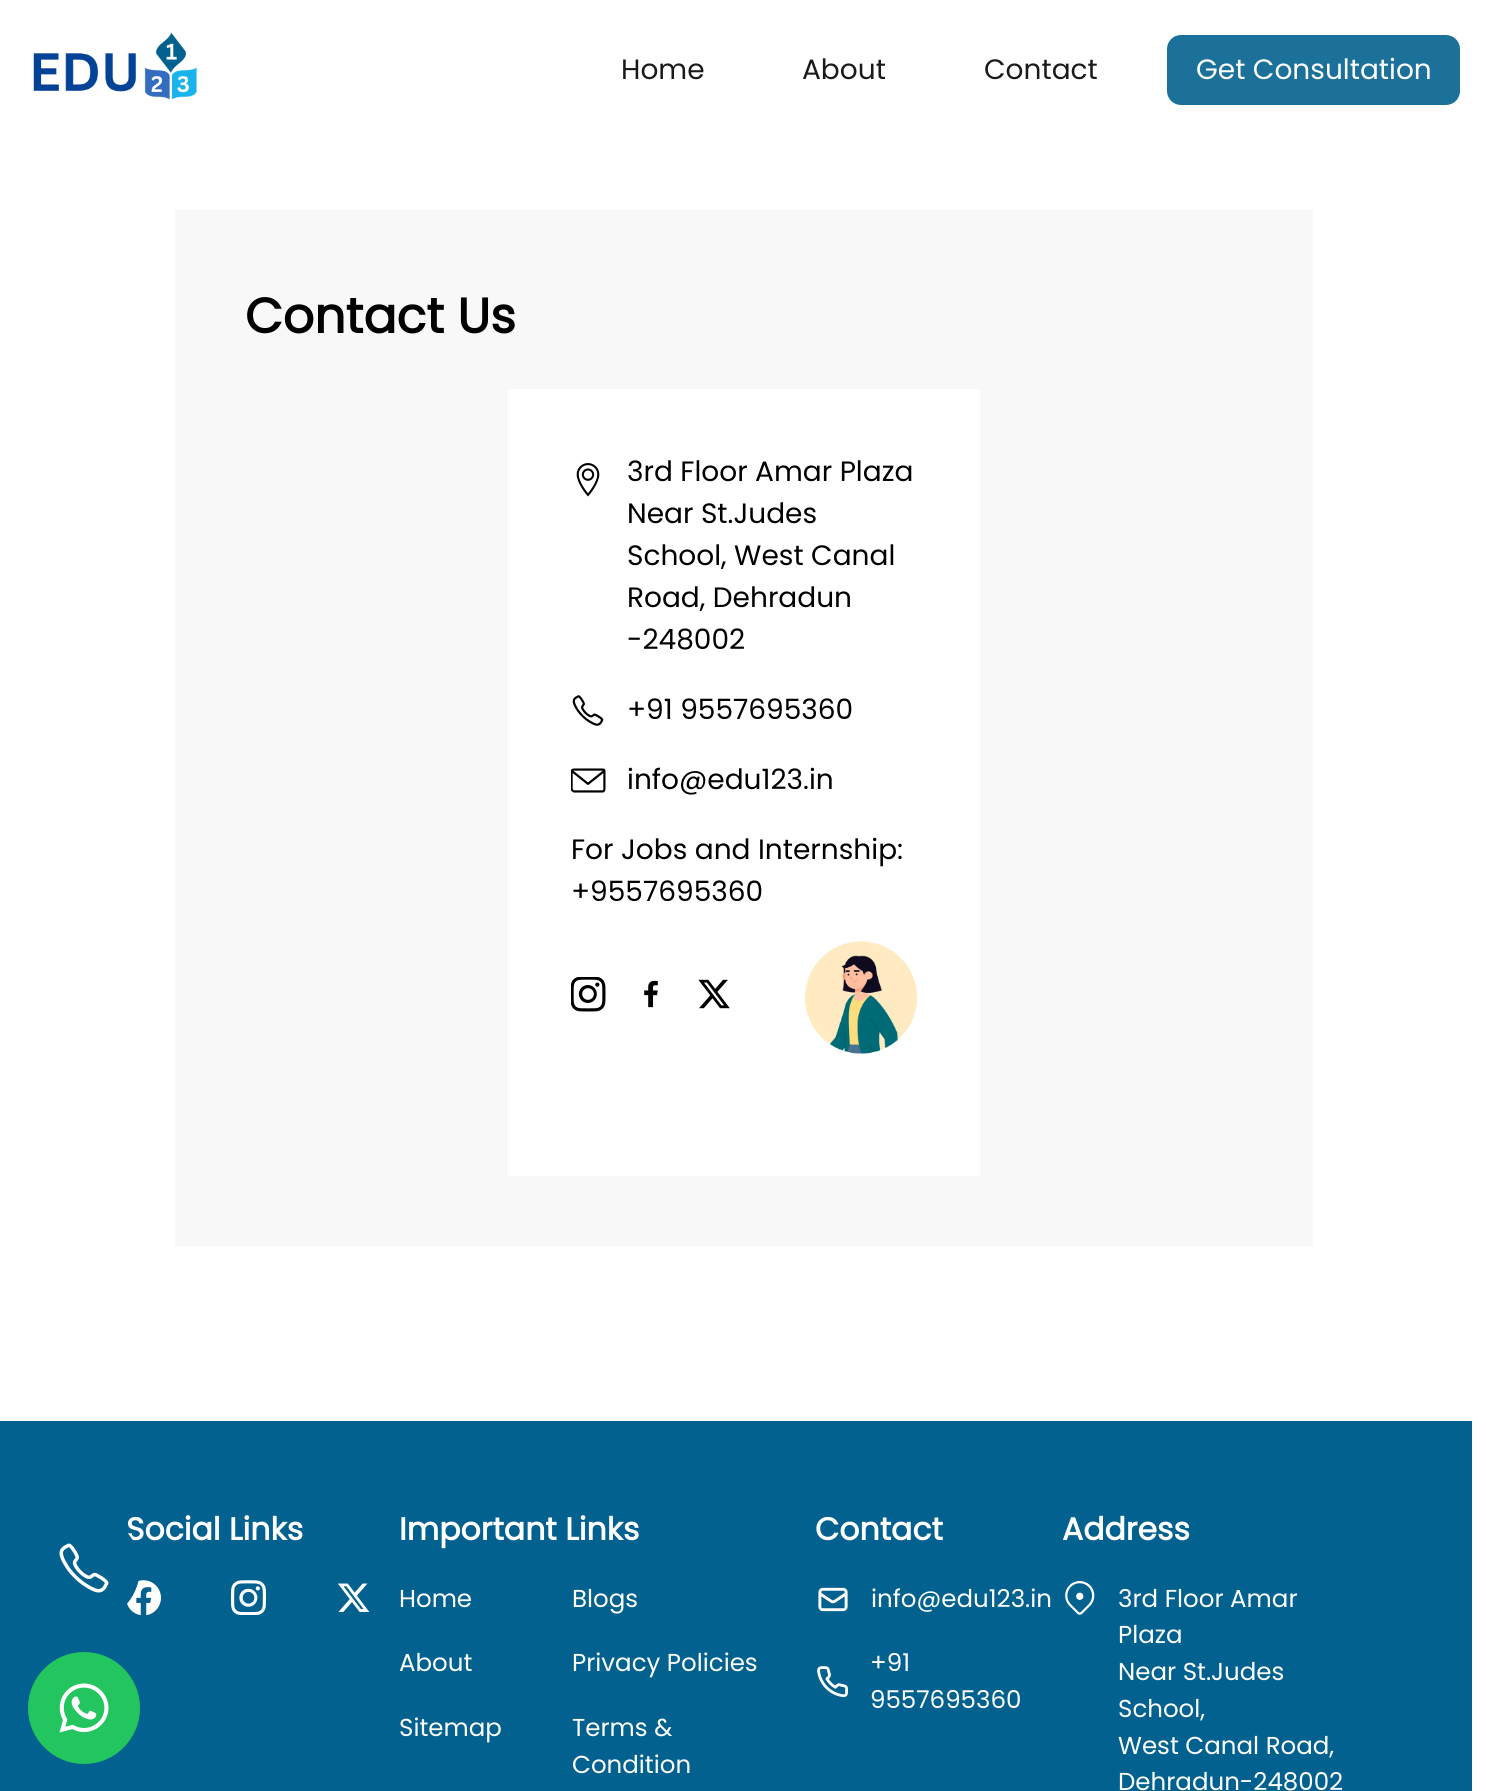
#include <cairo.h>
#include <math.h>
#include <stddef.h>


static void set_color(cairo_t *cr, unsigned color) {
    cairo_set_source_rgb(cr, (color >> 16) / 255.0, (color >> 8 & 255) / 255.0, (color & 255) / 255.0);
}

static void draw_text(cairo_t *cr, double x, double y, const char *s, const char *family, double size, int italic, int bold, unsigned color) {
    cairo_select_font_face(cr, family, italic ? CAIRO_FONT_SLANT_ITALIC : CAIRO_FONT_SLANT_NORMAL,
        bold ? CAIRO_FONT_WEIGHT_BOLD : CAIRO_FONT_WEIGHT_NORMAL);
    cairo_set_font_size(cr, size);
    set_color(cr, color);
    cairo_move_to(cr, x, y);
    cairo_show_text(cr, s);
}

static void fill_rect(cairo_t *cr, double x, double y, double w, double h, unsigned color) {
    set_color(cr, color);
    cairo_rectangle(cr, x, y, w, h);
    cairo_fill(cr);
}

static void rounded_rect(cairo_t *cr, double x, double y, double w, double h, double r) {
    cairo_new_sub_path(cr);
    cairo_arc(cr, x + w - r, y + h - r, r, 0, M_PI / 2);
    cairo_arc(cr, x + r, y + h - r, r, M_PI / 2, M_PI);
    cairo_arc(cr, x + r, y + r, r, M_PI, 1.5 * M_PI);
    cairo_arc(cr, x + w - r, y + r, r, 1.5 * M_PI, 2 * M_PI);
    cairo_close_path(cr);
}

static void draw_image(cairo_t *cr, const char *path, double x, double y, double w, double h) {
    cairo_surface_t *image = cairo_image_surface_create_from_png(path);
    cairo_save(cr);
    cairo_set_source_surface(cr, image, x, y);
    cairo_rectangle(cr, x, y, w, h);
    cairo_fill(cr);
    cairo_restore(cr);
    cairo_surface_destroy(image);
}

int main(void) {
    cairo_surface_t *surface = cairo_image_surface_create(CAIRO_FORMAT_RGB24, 1486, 1791);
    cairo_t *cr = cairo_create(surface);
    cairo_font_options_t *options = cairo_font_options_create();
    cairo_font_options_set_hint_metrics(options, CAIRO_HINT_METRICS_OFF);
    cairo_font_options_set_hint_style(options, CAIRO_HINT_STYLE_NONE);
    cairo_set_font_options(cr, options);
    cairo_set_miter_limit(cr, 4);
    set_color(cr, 0xFFFFFF);
    cairo_paint(cr);
    draw_image(cr, "assets/img1.png", 33, 32, 164, 68);
    draw_text(cr, 621, 79, "Home", "Poppins", 28, 0, 0, 0x1A1A1A);
    draw_text(cr, 802, 79, "About", "Poppins", 28, 0, 0, 0x1A1A1A);
    draw_text(cr, 984, 79, "Contact", "Poppins", 28, 0, 0, 0x1A1A1A);
    set_color(cr, 0x1B719A);
    rounded_rect(cr, 1167, 35, 293, 70, 14);
    cairo_fill(cr);
    draw_text(cr, 1196, 79, "Get Consultation", "Poppins", 28, 0, 0, 0xFFFFFF);
    fill_rect(cr, 175, 210, 1138, 1036, 0xF8F8F8);
    draw_text(cr, 245, 333, "Contact Us", "Poppins", 49, 0, 1, 0x000000);
    fill_rect(cr, 508, 389, 472, 787, 0xFFFFFF);
    draw_image(cr, "assets/img2.png", 576, 463, 24, 34);
    draw_text(cr, 627, 481, "3rd Floor Amar Plaza", "Poppins", 28, 0, 0, 0x000000);
    draw_text(cr, 627, 523, "Near St.Judes", "Poppins", 28, 0, 0, 0x000000);
    draw_text(cr, 627, 565, "School, West Canal", "Poppins", 28, 0, 0, 0x000000);
    draw_text(cr, 627, 607, "Road, Dehradun", "Poppins", 28, 0, 0, 0x000000);
    draw_text(cr, 627, 649, "-248002", "Poppins", 28, 0, 0, 0x000000);
    draw_image(cr, "assets/img3.png", 572, 695, 32, 31);
    draw_text(cr, 627, 719, "+91 9557695360", "Poppins", 28, 0, 0, 0x000000);
    draw_image(cr, "assets/img4.png", 571, 768, 35, 25);
    draw_text(cr, 627, 789, "info@edu123.in", "Poppins", 28, 0, 0, 0x000000);
    draw_text(cr, 571, 859, "For Jobs and Internship:", "Poppins", 28, 0, 0, 0x000000);
    draw_text(cr, 571, 901, "+9557695360", "Poppins", 28, 0, 0, 0x000000);
    draw_image(cr, "assets/img5.png", 571, 977, 35, 35);
    draw_image(cr, "assets/img6.png", 644, 980, 14, 28);
    draw_image(cr, "assets/img7.png", 698, 979, 32, 30);
    draw_image(cr, "assets/img8.png", 805, 941, 112, 113);
    fill_rect(cr, 0, 1421, 1472, 370, 0x02618F);
    draw_text(cr, 126, 1540, "Social Links", "Poppins", 31.5, 0, 1, 0xFFFFFF);
    draw_image(cr, "assets/img11.png", 126, 1580, 35, 35);
    set_color(cr, 0x02618F);
    cairo_arc(cr, 84, 1568, 56, 0, 2 * M_PI);
    cairo_fill(cr);
    draw_image(cr, "assets/img9.png", 59, 1543, 50, 50);
    set_color(cr, 0x22C55E);
    cairo_arc(cr, 84, 1708, 56, 0, 2 * M_PI);
    cairo_fill(cr);
    draw_image(cr, "assets/img10.png", 59, 1683, 50, 50);
    draw_image(cr, "assets/img12.png", 231, 1580, 35, 35);
    draw_image(cr, "assets/img13.png", 338, 1583, 32, 29);
    draw_text(cr, 399, 1540, "Important Links", "Poppins", 31.5, 0, 1, 0xFFFFFF);
    draw_text(cr, 399, 1607, "Home", "Poppins", 24.5, 0, 0, 0xFFFFFF);
    draw_text(cr, 399, 1671, "About", "Poppins", 24.5, 0, 0, 0xFFFFFF);
    draw_text(cr, 399, 1736, "Sitemap", "Poppins", 24.5, 0, 0, 0xFFFFFF);
    draw_text(cr, 572, 1607, "Blogs", "Poppins", 24.5, 0, 0, 0xFFFFFF);
    draw_text(cr, 572, 1671, "Privacy Policies", "Poppins", 24.5, 0, 0, 0xFFFFFF);
    draw_text(cr, 572, 1736, "Terms &", "Poppins", 24.5, 0, 0, 0xFFFFFF);
    draw_text(cr, 572, 1773, "Condition", "Poppins", 24.5, 0, 0, 0xFFFFFF);
    draw_text(cr, 815, 1540, "Contact", "Poppins", 31.5, 0, 1, 0xFFFFFF);
    draw_image(cr, "assets/img14.png", 818, 1587, 30, 25);
    draw_text(cr, 871, 1607, "info@edu123.in", "Poppins", 24.5, 0, 0, 0xFFFFFF);
    draw_image(cr, "assets/img15.png", 817, 1666, 31, 32);
    draw_text(cr, 870, 1671, "+91", "Poppins", 24.5, 0, 0, 0xFFFFFF);
    draw_text(cr, 870, 1708, "9557695360", "Poppins", 24.5, 0, 0, 0xFFFFFF);
    draw_text(cr, 1062, 1540, "Address", "Poppins", 31.5, 0, 1, 0xFFFFFF);
    draw_image(cr, "assets/img16.png", 1065, 1581, 30, 34);
    draw_text(cr, 1118, 1607, "3rd Floor Amar", "Poppins", 24.5, 0, 0, 0xFFFFFF);
    draw_text(cr, 1118, 1643, "Plaza", "Poppins", 24.5, 0, 0, 0xFFFFFF);
    draw_text(cr, 1118, 1680, "Near St.Judes", "Poppins", 24.5, 0, 0, 0xFFFFFF);
    draw_text(cr, 1118, 1717, "School,", "Poppins", 24.5, 0, 0, 0xFFFFFF);
    draw_text(cr, 1118, 1754, "West Canal Road,", "Poppins", 24.5, 0, 0, 0xFFFFFF);
    draw_text(cr, 1118, 1790, "Dehradun-248002", "Poppins", 24.5, 0, 0, 0xFFFFFF);
    cairo_surface_write_to_png(surface, "output.png");
    cairo_font_options_destroy(options);
    cairo_destroy(cr);
    cairo_surface_destroy(surface);
    return 0;
}
